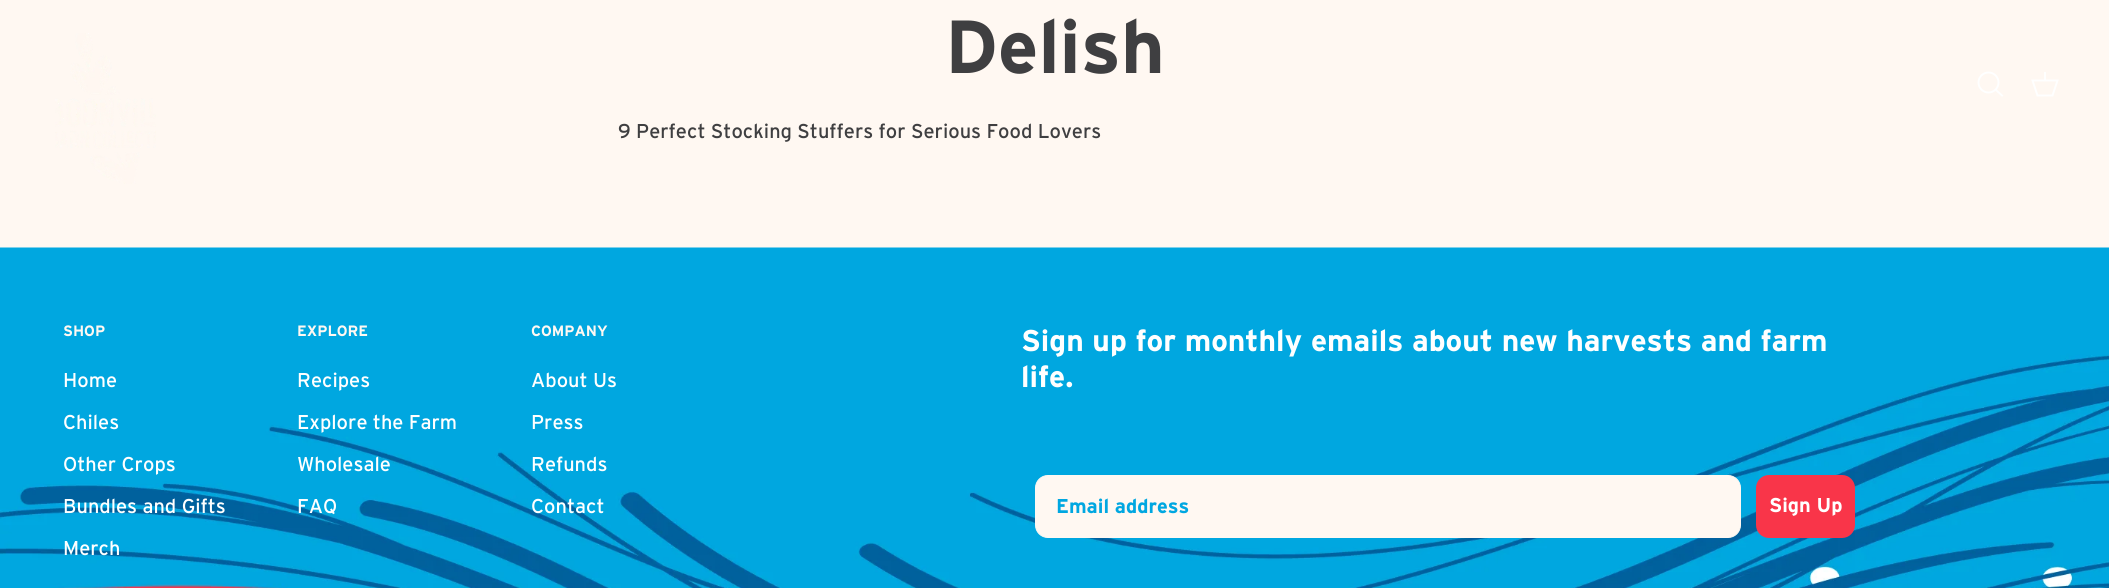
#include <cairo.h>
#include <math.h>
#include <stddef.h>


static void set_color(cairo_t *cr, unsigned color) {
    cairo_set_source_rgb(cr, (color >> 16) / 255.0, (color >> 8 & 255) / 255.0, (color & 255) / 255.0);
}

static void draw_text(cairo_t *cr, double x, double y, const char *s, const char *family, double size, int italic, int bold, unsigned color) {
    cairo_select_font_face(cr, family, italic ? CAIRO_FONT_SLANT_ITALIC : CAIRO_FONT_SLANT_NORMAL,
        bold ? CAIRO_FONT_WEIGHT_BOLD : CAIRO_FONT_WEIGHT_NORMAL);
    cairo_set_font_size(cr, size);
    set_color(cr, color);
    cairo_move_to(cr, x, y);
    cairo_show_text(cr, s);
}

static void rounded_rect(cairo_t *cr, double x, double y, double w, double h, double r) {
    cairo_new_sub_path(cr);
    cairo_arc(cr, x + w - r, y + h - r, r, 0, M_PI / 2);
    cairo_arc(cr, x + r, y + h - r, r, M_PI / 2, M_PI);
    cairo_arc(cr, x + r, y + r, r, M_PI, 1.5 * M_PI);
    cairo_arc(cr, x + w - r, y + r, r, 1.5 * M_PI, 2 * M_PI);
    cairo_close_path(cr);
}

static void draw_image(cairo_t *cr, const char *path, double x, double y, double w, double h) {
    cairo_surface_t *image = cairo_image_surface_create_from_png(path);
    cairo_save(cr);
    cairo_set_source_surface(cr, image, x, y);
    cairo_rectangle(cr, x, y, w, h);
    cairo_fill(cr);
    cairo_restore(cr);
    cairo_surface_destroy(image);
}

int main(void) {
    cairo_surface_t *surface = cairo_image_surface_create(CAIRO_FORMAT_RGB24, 2109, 588);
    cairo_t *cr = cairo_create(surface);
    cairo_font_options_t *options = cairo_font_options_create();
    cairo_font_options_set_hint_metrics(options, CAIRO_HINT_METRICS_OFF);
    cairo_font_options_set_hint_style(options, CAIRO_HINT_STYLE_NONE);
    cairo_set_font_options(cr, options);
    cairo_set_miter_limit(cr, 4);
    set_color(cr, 0xFFF8F2);
    cairo_paint(cr);
    draw_text(cr, 945, 73, "Delish", "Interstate", 75, 0, 1, 0x3F3F41);
    draw_text(cr, 618, 138, "9 Perfect Stocking Stuffers for Serious Food Lovers", "Interstate", 20, 0, 0, 0x3F3F41);
    draw_image(cr, "assets/img1.png", 55, 33, 101, 151);
    cairo_arc(cr, 1988.5, 82.5, 10, 0, 2 * M_PI);
    set_color(cr, 0xFFFFFF);
    cairo_set_line_width(cr, 1.9);
    cairo_stroke(cr);
    cairo_new_path(cr);
    cairo_move_to(cr, 1996, 90);
    cairo_line_to(cr, 2002, 95.5);
    cairo_set_line_cap(cr, CAIRO_LINE_CAP_SQUARE);
    cairo_stroke(cr);
    cairo_new_path(cr);
    cairo_move_to(cr, 2032.5, 80.5);
    cairo_line_to(cr, 2057.5, 80.5);
    cairo_line_to(cr, 2052.5, 95.5);
    cairo_line_to(cr, 2037.5, 95.5);
    cairo_close_path(cr);
    cairo_set_line_cap(cr, CAIRO_LINE_CAP_BUTT);
    cairo_stroke(cr);
    cairo_set_source_rgba(cr, 1, 1, 1, 0.95);
    cairo_rectangle(cr, 2044, 72, 2, 9);
    cairo_fill(cr);
    draw_image(cr, "assets/img2.png", 0, 247, 2109, 341);
    draw_text(cr, 63, 336, "SHOP", "Interstate", 15, 0, 1, 0xFFF8F2);
    draw_text(cr, 63, 387, "Home", "Interstate", 20, 0, 0, 0xFFFFFF);
    draw_text(cr, 63, 429, "Chiles", "Interstate", 20, 0, 0, 0xFFFFFF);
    draw_text(cr, 63, 471, "Other Crops", "Interstate", 20, 0, 0, 0xFFFFFF);
    draw_text(cr, 63, 513, "Bundles and Gifts", "Interstate", 20, 0, 0, 0xFFFFFF);
    draw_text(cr, 63, 555, "Merch", "Interstate", 20, 0, 0, 0xFFFFFF);
    draw_text(cr, 297, 336, "EXPLORE", "Interstate", 15, 0, 1, 0xFFF8F2);
    draw_text(cr, 297, 387, "Recipes", "Interstate", 20, 0, 0, 0xFFFFFF);
    draw_text(cr, 297, 429, "Explore the Farm", "Interstate", 20, 0, 0, 0xFFFFFF);
    draw_text(cr, 297, 471, "Wholesale", "Interstate", 20, 0, 0, 0xFFFFFF);
    draw_text(cr, 297, 513, "FAQ", "Interstate", 20, 0, 0, 0xFFFFFF);
    draw_text(cr, 531, 336, "COMPANY", "Interstate", 15, 0, 1, 0xFFF8F2);
    draw_text(cr, 531, 387, "About Us", "Interstate", 20, 0, 0, 0xFFFFFF);
    draw_text(cr, 531, 429, "Press", "Interstate", 20, 0, 0, 0xFFFFFF);
    draw_text(cr, 531, 471, "Refunds", "Interstate", 20, 0, 0, 0xFFFFFF);
    draw_text(cr, 531, 513, "Contact", "Interstate", 20, 0, 0, 0xFFFFFF);
    draw_text(cr, 1021, 351, "Sign up for monthly emails about new harvests and farm", "Interstate", 30, 0, 1, 0xFFFFFF);
    draw_text(cr, 1021, 387, "life.", "Interstate", 30, 0, 1, 0xFFFFFF);
    set_color(cr, 0xFFF8F2);
    rounded_rect(cr, 1035.5, 475.5, 705, 62, 12.5);
    cairo_fill_preserve(cr);
    cairo_set_line_width(cr, 1);
    cairo_stroke(cr);
    draw_text(cr, 1056, 513, "Email address", "Interstate", 20, 0, 1, 0x00A7E1);
    set_color(cr, 0xF93549);
    rounded_rect(cr, 1756, 475, 99, 63, 13);
    cairo_fill(cr);
    draw_text(cr, 1769, 512, "Sign Up", "Interstate", 20, 0, 1, 0xFFFFFF);
    cairo_surface_write_to_png(surface, "output.png");
    cairo_font_options_destroy(options);
    cairo_destroy(cr);
    cairo_surface_destroy(surface);
    return 0;
}
